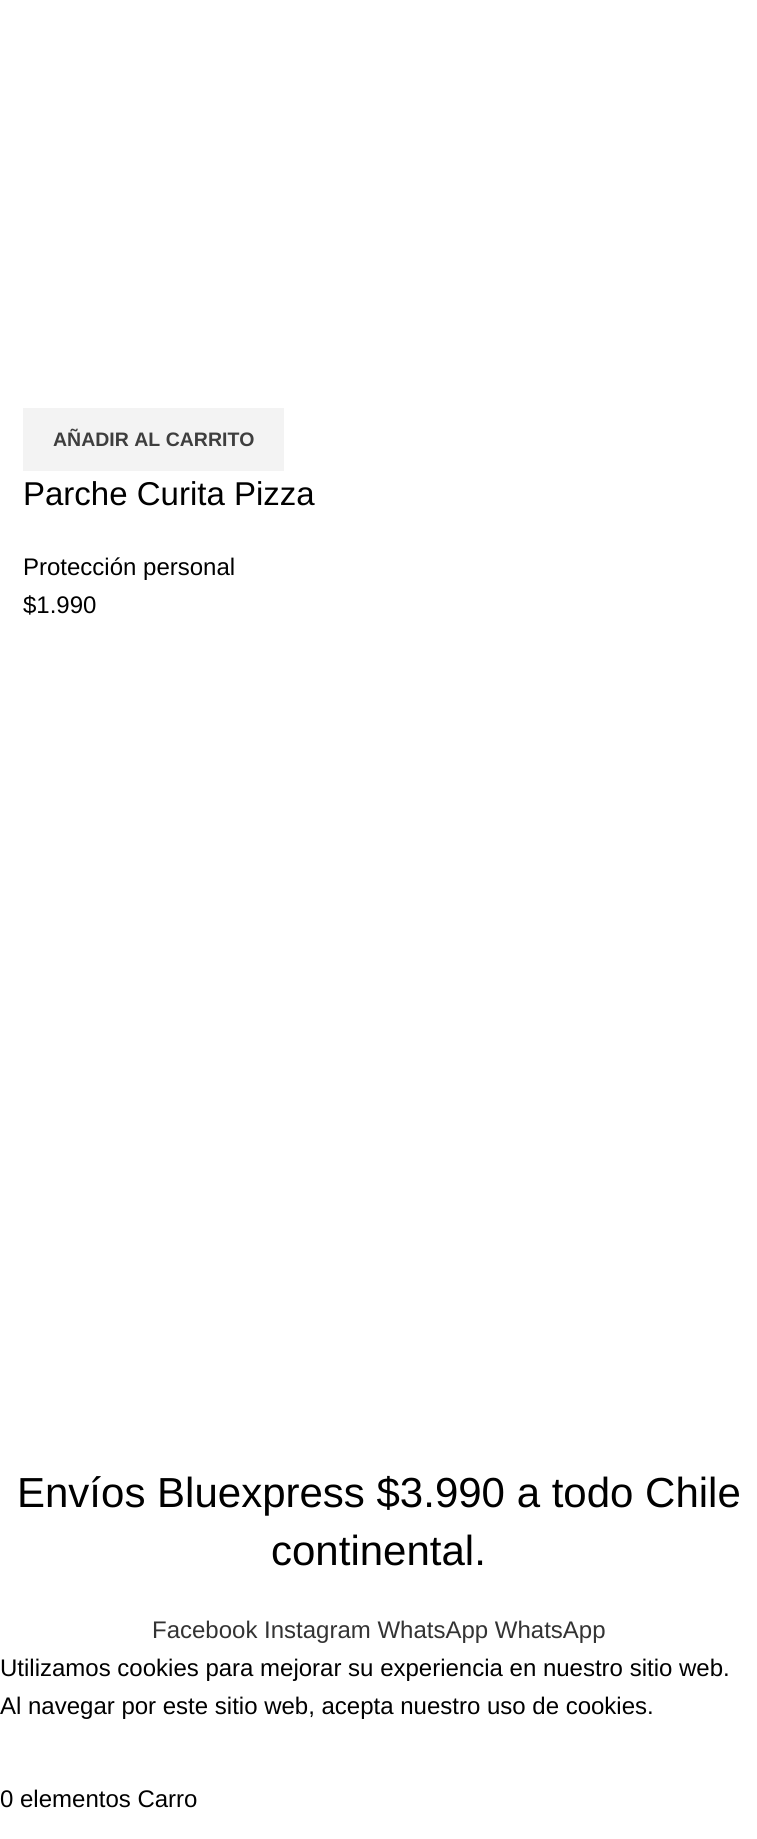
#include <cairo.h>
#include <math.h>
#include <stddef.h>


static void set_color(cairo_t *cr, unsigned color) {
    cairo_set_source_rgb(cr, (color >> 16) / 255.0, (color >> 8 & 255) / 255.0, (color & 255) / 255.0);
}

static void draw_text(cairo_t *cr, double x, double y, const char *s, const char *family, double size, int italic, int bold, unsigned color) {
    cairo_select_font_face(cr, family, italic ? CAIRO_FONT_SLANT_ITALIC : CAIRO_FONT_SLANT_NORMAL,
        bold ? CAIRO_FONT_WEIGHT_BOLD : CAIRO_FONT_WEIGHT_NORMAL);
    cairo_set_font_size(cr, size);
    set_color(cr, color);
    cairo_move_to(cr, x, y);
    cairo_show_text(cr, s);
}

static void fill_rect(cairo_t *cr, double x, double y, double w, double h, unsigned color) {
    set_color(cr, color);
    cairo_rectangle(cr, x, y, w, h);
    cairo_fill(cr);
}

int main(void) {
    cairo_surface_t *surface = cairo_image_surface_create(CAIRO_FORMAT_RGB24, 757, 1839);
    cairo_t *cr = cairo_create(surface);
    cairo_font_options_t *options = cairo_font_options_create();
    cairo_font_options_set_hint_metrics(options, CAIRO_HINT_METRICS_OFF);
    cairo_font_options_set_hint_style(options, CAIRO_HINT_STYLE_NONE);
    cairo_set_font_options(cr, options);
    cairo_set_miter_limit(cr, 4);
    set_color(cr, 0xFFFFFF);
    cairo_paint(cr);
    fill_rect(cr, 23, 408, 261, 63, 0xF3F3F3);
    draw_text(cr, 53, 446, "AÑADIR AL CARRITO", "Liberation Sans", 19.5, 0, 1, 0x3E3E3E);
    draw_text(cr, 23, 505, "Parche Curita Pizza", "Liberation Sans", 33, 0, 0, 0x000000);
    draw_text(cr, 23, 575, "Protección personal", "Liberation Sans", 24, 0, 0, 0x000000);
    draw_text(cr, 23, 613, "$1.990", "Liberation Sans", 24, 0, 0, 0x000000);
    draw_text(cr, 17, 1507, "Envíos Bluexpress $3.990 a todo Chile", "Liberation Sans", 42, 0, 0, 0x000000);
    draw_text(cr, 271, 1565, "continental.", "Liberation Sans", 42, 0, 0, 0x000000);
    draw_text(cr, 152, 1638, "Facebook Instagram WhatsApp WhatsApp", "Liberation Sans", 24, 0, 0, 0x333333);
    draw_text(cr, 0, 1676, "Utilizamos cookies para mejorar su experiencia en nuestro sitio web.", "Liberation Sans", 24, 0, 0, 0x000000);
    draw_text(cr, 0, 1714, "Al navegar por este sitio web, acepta nuestro uso de cookies.", "Liberation Sans", 24, 0, 0, 0x000000);
    draw_text(cr, 0, 1807, "0 elementos Carro", "Liberation Sans", 24, 0, 0, 0x000000);
    cairo_surface_write_to_png(surface, "output.png");
    cairo_font_options_destroy(options);
    cairo_destroy(cr);
    cairo_surface_destroy(surface);
    return 0;
}
